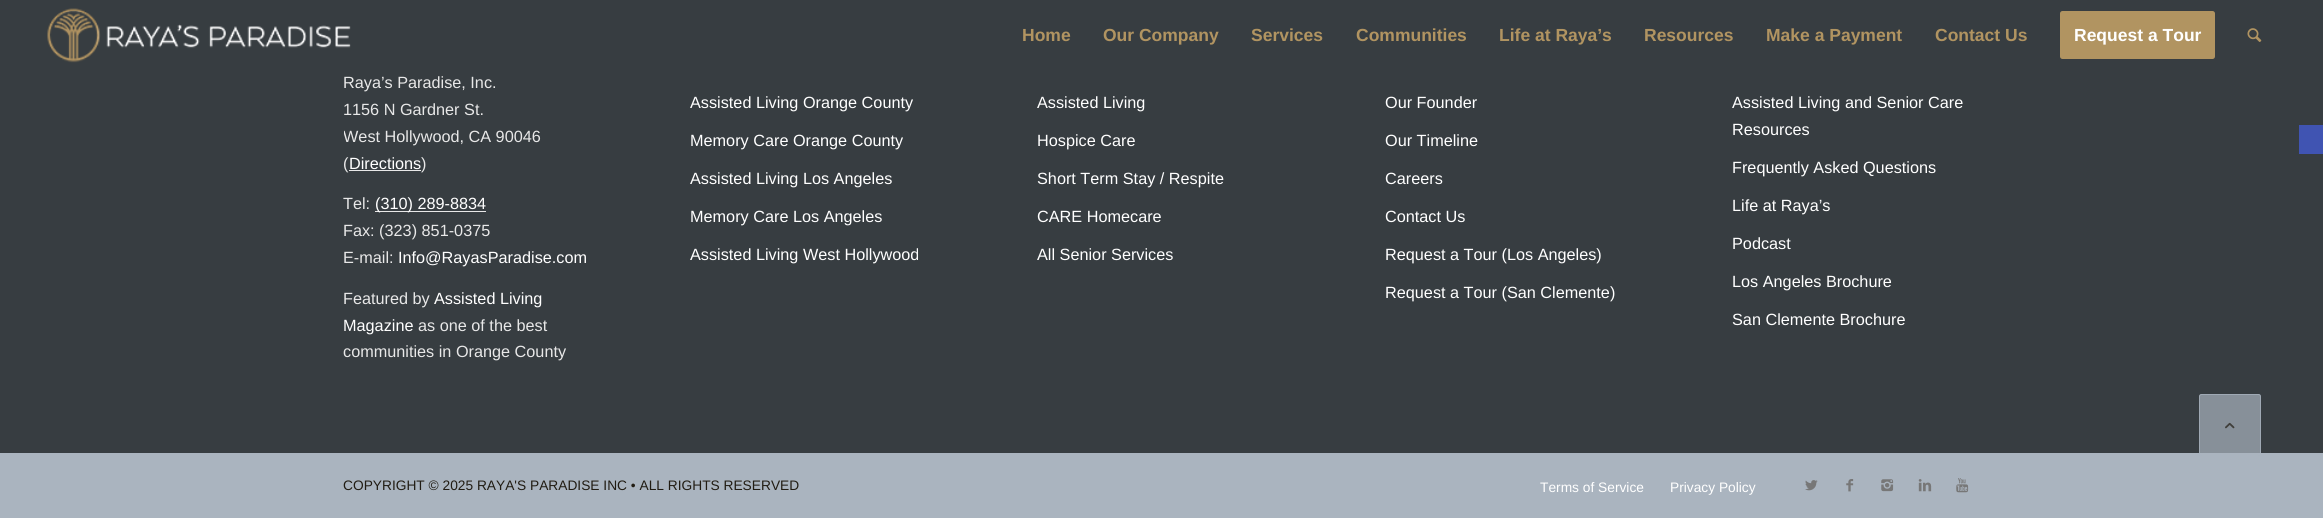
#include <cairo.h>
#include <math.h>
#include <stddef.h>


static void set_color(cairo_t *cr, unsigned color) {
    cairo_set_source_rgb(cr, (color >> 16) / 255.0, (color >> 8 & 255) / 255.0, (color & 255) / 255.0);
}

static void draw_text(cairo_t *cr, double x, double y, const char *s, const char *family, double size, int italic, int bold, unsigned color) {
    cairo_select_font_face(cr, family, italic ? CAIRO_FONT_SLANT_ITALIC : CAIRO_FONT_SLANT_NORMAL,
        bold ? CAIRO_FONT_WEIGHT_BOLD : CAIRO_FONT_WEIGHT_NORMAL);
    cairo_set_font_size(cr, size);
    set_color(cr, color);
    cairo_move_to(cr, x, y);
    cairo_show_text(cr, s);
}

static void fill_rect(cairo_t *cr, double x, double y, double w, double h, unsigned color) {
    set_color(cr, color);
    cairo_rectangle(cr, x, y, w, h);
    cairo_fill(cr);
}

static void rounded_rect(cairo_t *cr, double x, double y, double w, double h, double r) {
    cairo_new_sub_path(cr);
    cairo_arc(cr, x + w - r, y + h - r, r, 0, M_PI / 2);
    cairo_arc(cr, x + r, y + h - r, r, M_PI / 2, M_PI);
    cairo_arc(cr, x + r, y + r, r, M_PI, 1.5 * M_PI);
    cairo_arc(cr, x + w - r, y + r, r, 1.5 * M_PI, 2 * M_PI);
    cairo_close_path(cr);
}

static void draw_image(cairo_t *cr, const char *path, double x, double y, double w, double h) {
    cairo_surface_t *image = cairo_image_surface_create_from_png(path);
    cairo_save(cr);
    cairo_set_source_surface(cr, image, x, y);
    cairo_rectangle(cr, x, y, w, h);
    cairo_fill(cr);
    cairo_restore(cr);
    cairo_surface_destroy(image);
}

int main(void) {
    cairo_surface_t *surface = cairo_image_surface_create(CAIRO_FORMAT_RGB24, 2323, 518);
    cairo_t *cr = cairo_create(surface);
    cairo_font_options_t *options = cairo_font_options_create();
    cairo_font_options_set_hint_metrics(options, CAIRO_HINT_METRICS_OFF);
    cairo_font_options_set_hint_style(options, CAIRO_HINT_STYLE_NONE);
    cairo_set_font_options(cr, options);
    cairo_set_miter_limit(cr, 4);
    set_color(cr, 0x373D41);
    cairo_paint(cr);
    draw_image(cr, "assets/img1.png", 47, 8, 304, 55);
    draw_text(cr, 1022, 41, "Home", "Liberation Sans", 17.5, 0, 1, 0xB19461);
    draw_text(cr, 1103, 41, "Our Company", "Liberation Sans", 17.5, 0, 1, 0xB19461);
    draw_text(cr, 1251, 41, "Services", "Liberation Sans", 17.5, 0, 1, 0xB19461);
    draw_text(cr, 1356, 41, "Communities", "Liberation Sans", 17.5, 0, 1, 0xB19461);
    draw_text(cr, 1499, 41, "Life at Raya’s", "Liberation Sans", 17.5, 0, 1, 0xB19461);
    draw_text(cr, 1644, 41, "Resources", "Liberation Sans", 17.5, 0, 1, 0xB19461);
    draw_text(cr, 1766, 41, "Make a Payment", "Liberation Sans", 17.5, 0, 1, 0xB19461);
    draw_text(cr, 1935, 41, "Contact Us", "Liberation Sans", 17.5, 0, 1, 0xB19461);
    rounded_rect(cr, 2061.5, 12.5, 152, 45, 1);
    cairo_fill_preserve(cr);
    cairo_set_line_width(cr, 3);
    cairo_stroke(cr);
    draw_text(cr, 2074, 41, "Request a Tour", "Liberation Sans", 17.5, 0, 1, 0xFFFFFF);
    draw_image(cr, "assets/img2.png", 2247, 28, 15, 14);
    draw_text(cr, 343, 88, "Raya’s Paradise, Inc.", "Liberation Sans", 16.25, 0, 0, 0xE8E8E8);
    draw_text(cr, 343, 115, "1156 N Gardner St.", "Liberation Sans", 16.25, 0, 0, 0xE8E8E8);
    cairo_save(cr);
    cairo_rectangle(cr, 344, 1, 249, 378);
    cairo_clip(cr);
    draw_text(cr, 343, 142, "West Hollywood, CA 90046", "Liberation Sans", 16.25, 0, 0, 0xE8E8E8);
    cairo_restore(cr);
    draw_text(cr, 343, 169, "(", "Liberation Sans", 16.25, 0, 0, 0xE8E8E8);
    draw_text(cr, 349, 169, "Directions", "Liberation Sans", 16.25, 0, 0, 0xFFFFFF);
    fill_rect(cr, 349, 170, 72, 1, 0xE8E8E8);
    draw_text(cr, 421, 169, ")", "Liberation Sans", 16.25, 0, 0, 0xE8E8E8);
    draw_text(cr, 343, 209, "Tel:", "Liberation Sans", 16.25, 0, 0, 0xE8E8E8);
    fill_rect(cr, 375, 211, 111, 1, 0xE8E8E8);
    draw_text(cr, 375, 209, "(310) 289-8834", "Liberation Sans", 16.25, 0, 0, 0xFFFFFF);
    draw_text(cr, 343, 236, "Fax: (323) 851-0375", "Liberation Sans", 16.25, 0, 0, 0xE8E8E8);
    draw_text(cr, 343, 263, "E-mail:", "Liberation Sans", 16.25, 0, 0, 0xE8E8E8);
    draw_text(cr, 398, 263, "Info@RayasParadise.com", "Liberation Sans", 16.25, 0, 0, 0xFFFFFF);
    draw_text(cr, 343, 304, "Featured by", "Liberation Sans", 16.25, 0, 0, 0xE8E8E8);
    draw_text(cr, 434, 304, "Assisted Living", "Liberation Sans", 16.25, 0, 0, 0xFFFFFF);
    draw_text(cr, 343, 331, "Magazine", "Liberation Sans", 16.25, 0, 0, 0xFFFFFF);
    draw_text(cr, 418, 331, "as one of the best", "Liberation Sans", 16.25, 0, 0, 0xE8E8E8);
    draw_text(cr, 343, 357, "communities in Orange County", "Liberation Sans", 16.25, 0, 0, 0xE8E8E8);
    draw_text(cr, 690, 108, "Assisted Living Orange County", "Liberation Sans", 16.25, 0, 0, 0xFFFFFF);
    draw_text(cr, 690, 146, "Memory Care Orange County", "Liberation Sans", 16.25, 0, 0, 0xFFFFFF);
    draw_text(cr, 690, 184, "Assisted Living Los Angeles", "Liberation Sans", 16.25, 0, 0, 0xFFFFFF);
    draw_text(cr, 690, 222, "Memory Care Los Angeles", "Liberation Sans", 16.25, 0, 0, 0xFFFFFF);
    draw_text(cr, 690, 260, "Assisted Living West Hollywood", "Liberation Sans", 16.25, 0, 0, 0xFFFFFF);
    draw_text(cr, 1037, 108, "Assisted Living", "Liberation Sans", 16.25, 0, 0, 0xFFFFFF);
    draw_text(cr, 1037, 146, "Hospice Care", "Liberation Sans", 16.25, 0, 0, 0xFFFFFF);
    draw_text(cr, 1037, 184, "Short Term Stay / Respite", "Liberation Sans", 16.25, 0, 0, 0xFFFFFF);
    draw_text(cr, 1037, 222, "CARE Homecare", "Liberation Sans", 16.25, 0, 0, 0xFFFFFF);
    draw_text(cr, 1037, 260, "All Senior Services", "Liberation Sans", 16.25, 0, 0, 0xFFFFFF);
    draw_text(cr, 1385, 108, "Our Founder", "Liberation Sans", 16.25, 0, 0, 0xFFFFFF);
    draw_text(cr, 1385, 146, "Our Timeline", "Liberation Sans", 16.25, 0, 0, 0xFFFFFF);
    draw_text(cr, 1385, 184, "Careers", "Liberation Sans", 16.25, 0, 0, 0xFFFFFF);
    draw_text(cr, 1385, 222, "Contact Us", "Liberation Sans", 16.25, 0, 0, 0xFFFFFF);
    draw_text(cr, 1385, 260, "Request a Tour (Los Angeles)", "Liberation Sans", 16.25, 0, 0, 0xFFFFFF);
    draw_text(cr, 1385, 298, "Request a Tour (San Clemente)", "Liberation Sans", 16.25, 0, 0, 0xFFFFFF);
    draw_text(cr, 1732, 108, "Assisted Living and Senior Care", "Liberation Sans", 16.25, 0, 0, 0xFFFFFF);
    draw_text(cr, 1732, 135, "Resources", "Liberation Sans", 16.25, 0, 0, 0xFFFFFF);
    draw_text(cr, 1732, 173, "Frequently Asked Questions", "Liberation Sans", 16.25, 0, 0, 0xFFFFFF);
    draw_text(cr, 1732, 211, "Life at Raya’s", "Liberation Sans", 16.25, 0, 0, 0xFFFFFF);
    draw_text(cr, 1732, 249, "Podcast", "Liberation Sans", 16.25, 0, 0, 0xFFFFFF);
    draw_text(cr, 1732, 287, "Los Angeles Brochure", "Liberation Sans", 16.25, 0, 0, 0xFFFFFF);
    draw_text(cr, 1732, 325, "San Clemente Brochure", "Liberation Sans", 16.25, 0, 0, 0xFFFFFF);
    fill_rect(cr, 0, 453, 2323, 65, 0xAAB4BF);
    draw_text(cr, 343, 490, "COPYRIGHT © 2025 RAYA'S PARADISE INC • ALL RIGHTS RESERVED", "Liberation Sans", 13.75, 0, 0, 0x211C13);
    draw_text(cr, 1540, 492, "Terms of Service", "Liberation Sans", 13.75, 0, 0, 0xFFFFFF);
    draw_text(cr, 1670, 492, "Privacy Policy", "Liberation Sans", 13.75, 0, 0, 0xFFFFFF);
    draw_image(cr, "assets/img3.png", 1805, 480, 13, 11);
    draw_image(cr, "assets/img4.png", 1846, 479, 8, 13);
    draw_image(cr, "assets/img5.png", 1881, 479, 13, 13);
    draw_image(cr, "assets/img6.png", 1918, 479, 14, 13);
    draw_image(cr, "assets/img7.png", 1956, 478, 13, 15);
    fill_rect(cr, 2299, 125, 24, 29, 0x4054B2);
    cairo_set_source_rgba(cr, 0.667, 0.706, 0.749, 0.7);
    rounded_rect(cr, 2199, 394, 62, 62, 2.5);
    cairo_fill(cr);
    rounded_rect(cr, 2199.5, 394.5, 61, 61, 2);
    cairo_set_line_width(cr, 1);
    cairo_stroke(cr);
    draw_image(cr, "assets/img8.png", 2225, 422, 10, 7);
    cairo_surface_write_to_png(surface, "output.png");
    cairo_font_options_destroy(options);
    cairo_destroy(cr);
    cairo_surface_destroy(surface);
    return 0;
}
